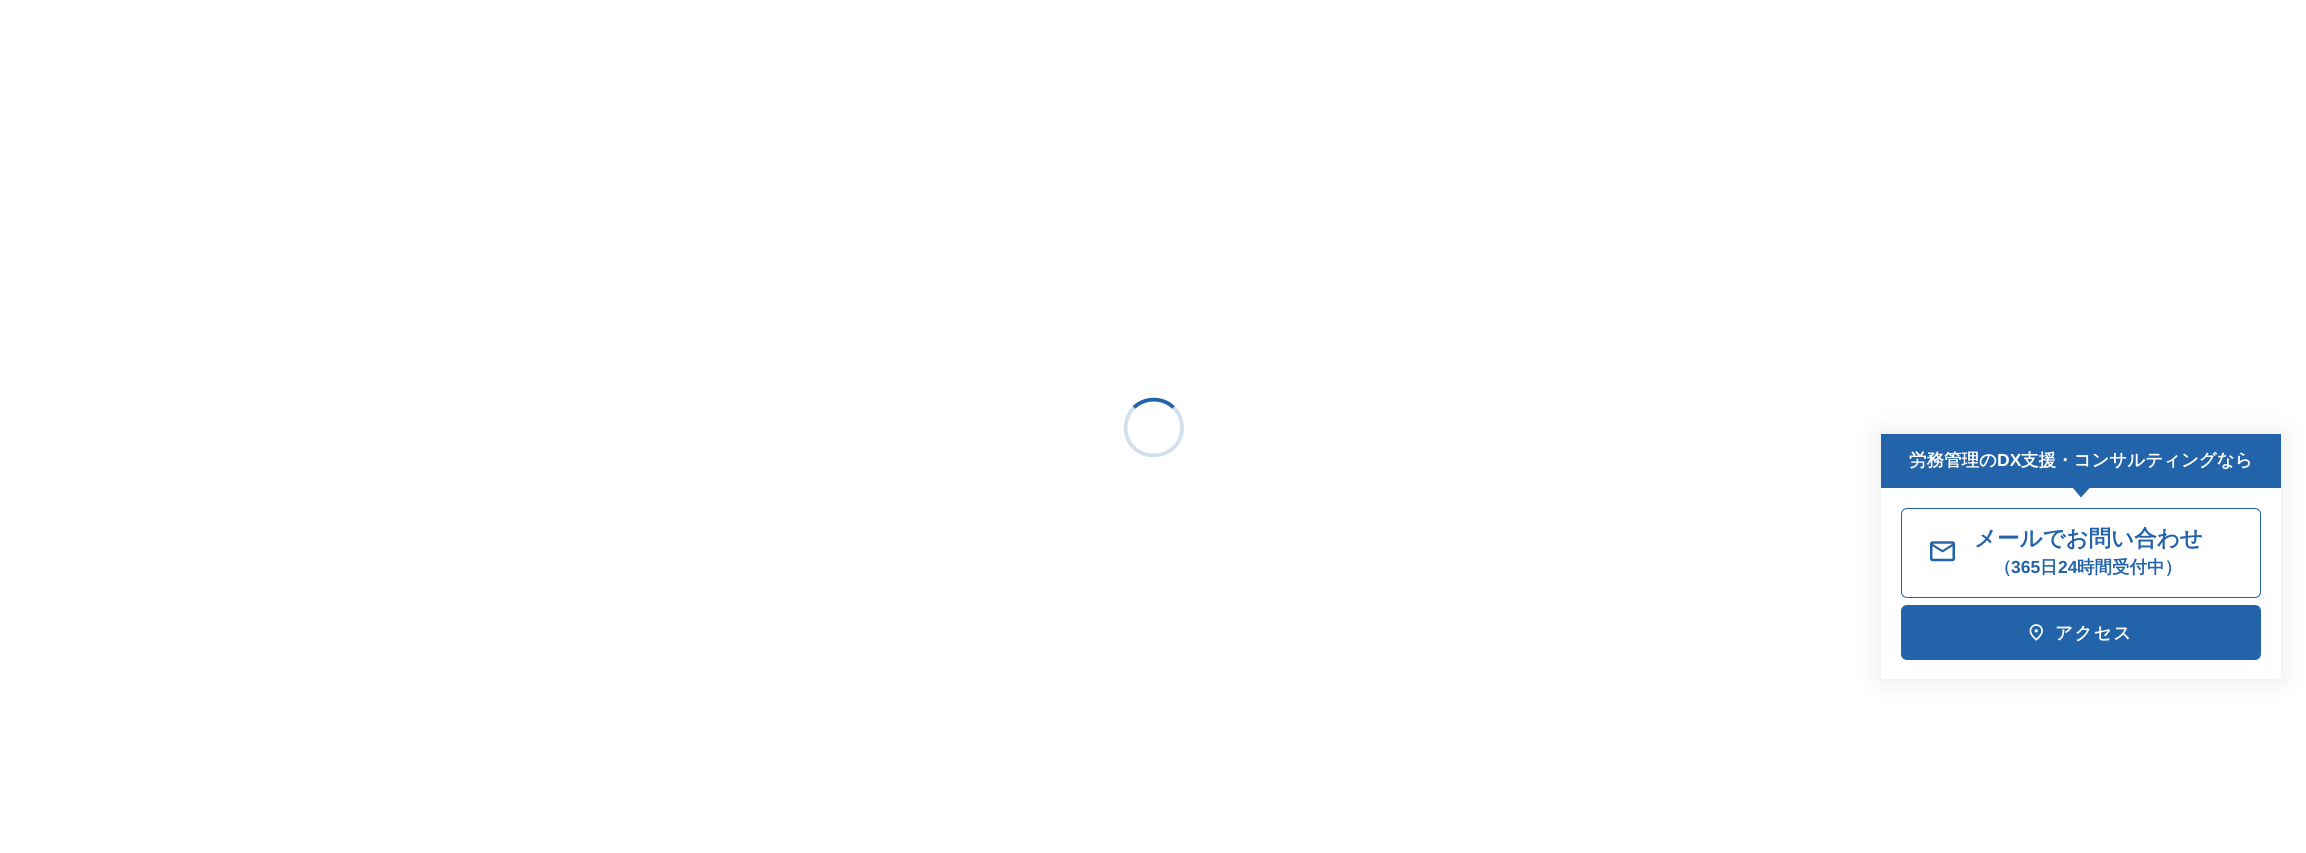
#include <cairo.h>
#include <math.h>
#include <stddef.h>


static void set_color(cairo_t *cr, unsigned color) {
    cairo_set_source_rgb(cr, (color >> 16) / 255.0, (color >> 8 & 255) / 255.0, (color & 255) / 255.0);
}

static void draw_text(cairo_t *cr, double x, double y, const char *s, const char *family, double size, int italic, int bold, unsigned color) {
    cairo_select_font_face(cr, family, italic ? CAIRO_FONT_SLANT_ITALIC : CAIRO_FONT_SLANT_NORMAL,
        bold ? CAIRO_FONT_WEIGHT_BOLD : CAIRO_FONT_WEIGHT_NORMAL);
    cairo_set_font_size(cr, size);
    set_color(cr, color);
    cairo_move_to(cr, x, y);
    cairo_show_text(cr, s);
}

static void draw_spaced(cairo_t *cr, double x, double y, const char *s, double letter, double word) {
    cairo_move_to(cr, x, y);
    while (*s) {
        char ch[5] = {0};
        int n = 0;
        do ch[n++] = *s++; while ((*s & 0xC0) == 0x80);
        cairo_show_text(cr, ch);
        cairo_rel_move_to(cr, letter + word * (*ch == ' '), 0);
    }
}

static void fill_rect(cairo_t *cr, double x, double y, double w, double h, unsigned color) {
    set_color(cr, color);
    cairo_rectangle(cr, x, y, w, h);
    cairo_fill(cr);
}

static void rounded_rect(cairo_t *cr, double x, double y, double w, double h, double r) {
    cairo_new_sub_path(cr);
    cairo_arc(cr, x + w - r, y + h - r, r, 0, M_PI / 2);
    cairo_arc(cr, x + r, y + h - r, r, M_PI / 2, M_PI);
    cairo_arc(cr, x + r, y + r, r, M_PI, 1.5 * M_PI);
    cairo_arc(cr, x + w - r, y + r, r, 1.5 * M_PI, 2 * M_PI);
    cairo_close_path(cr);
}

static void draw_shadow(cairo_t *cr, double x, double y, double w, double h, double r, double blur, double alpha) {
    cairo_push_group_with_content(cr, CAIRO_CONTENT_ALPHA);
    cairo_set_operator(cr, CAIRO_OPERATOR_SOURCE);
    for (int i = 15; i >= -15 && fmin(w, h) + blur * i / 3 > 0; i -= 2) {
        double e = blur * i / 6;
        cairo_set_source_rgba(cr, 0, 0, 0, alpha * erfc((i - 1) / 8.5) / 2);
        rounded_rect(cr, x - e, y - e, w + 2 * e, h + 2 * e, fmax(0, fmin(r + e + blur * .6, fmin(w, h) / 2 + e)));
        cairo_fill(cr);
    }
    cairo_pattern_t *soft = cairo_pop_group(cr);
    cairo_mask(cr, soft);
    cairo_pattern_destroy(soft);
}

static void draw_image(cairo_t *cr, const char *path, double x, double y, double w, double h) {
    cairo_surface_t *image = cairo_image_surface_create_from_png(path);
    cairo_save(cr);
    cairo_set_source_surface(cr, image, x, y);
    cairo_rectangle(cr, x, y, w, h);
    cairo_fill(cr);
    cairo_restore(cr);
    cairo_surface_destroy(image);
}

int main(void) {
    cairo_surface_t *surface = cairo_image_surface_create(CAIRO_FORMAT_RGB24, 2306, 853);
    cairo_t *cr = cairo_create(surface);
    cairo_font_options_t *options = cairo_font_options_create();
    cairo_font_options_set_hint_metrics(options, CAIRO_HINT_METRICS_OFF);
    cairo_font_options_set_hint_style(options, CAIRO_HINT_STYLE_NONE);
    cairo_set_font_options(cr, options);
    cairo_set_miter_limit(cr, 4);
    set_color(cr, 0xFFFFFF);
    cairo_paint(cr);
    cairo_new_path(cr);
    cairo_move_to(cr, 1134, 407.5);
    cairo_curve_to(cr, 1144.5, 397, 1163, 397, 1173.5, 407.5);
    set_color(cr, 0x2263AA);
    cairo_set_line_width(cr, 3.8);
    cairo_stroke(cr);
    cairo_new_path(cr);
    cairo_move_to(cr, 1173.5, 407.5);
    cairo_curve_to(cr, 1179, 413, 1182, 420, 1182, 427.5);
    cairo_curve_to(cr, 1182, 461, 1132.5, 466, 1126, 433);
    cairo_curve_to(cr, 1124.5, 424, 1127.5, 414, 1134, 407.5);
    cairo_set_source_rgba(cr, 0.133, 0.388, 0.667, 0.2);
    cairo_stroke(cr);
    set_color(cr, 0x000000);
    draw_shadow(cr, 1881, 434, 400, 245, 0, 12.5, 0.1);
    fill_rect(cr, 1881, 488, 400, 191, 0xFFFFFF);
    fill_rect(cr, 1881, 434, 400, 54, 0x2263AA);
    draw_text(cr, 1909, 466, "労務管理の", "WenQuanYi Zen Hei", 17.5, 0, 1, 0xFFFFFF);
    draw_text(cr, 1997, 466, "DX", "Liberation Sans", 17.5, 0, 1, 0xFFFFFF);
    draw_text(cr, 2021, 466, "支援・コンサルティングなら", "WenQuanYi Zen Hei", 17.5, 0, 1, 0xFFFFFF);
    set_color(cr, 0x2263AA);
    cairo_new_path(cr);
    cairo_move_to(cr, 2072.5, 487.5);
    cairo_line_to(cr, 2090, 487.5);
    cairo_line_to(cr, 2081, 497.5);
    cairo_close_path(cr);
    cairo_fill(cr);
    rounded_rect(cr, 1901.5, 508.5, 359, 89, 5.5);
    cairo_set_line_width(cr, 1);
    cairo_stroke(cr);
    draw_image(cr, "assets/img1.png", 1930, 541, 25, 21);
    draw_text(cr, 1974, 546, "メールでお問い合わせ", "WenQuanYi Zen Hei", 22.5, 0, 1, 0x2263AA);
    draw_text(cr, 1994, 573, "（", "WenQuanYi Zen Hei", 17.5, 0, 1, 0x2263AA);
    draw_text(cr, 2011, 573, "365", "Liberation Sans", 17.5, 0, 1, 0x2263AA);
    draw_text(cr, 2040, 573, "日", "WenQuanYi Zen Hei", 17.5, 0, 1, 0x2263AA);
    draw_text(cr, 2058, 573, "24", "Liberation Sans", 17.5, 0, 1, 0x2263AA);
    draw_text(cr, 2077, 573, "時間受付中）", "WenQuanYi Zen Hei", 17.5, 0, 1, 0x2263AA);
    rounded_rect(cr, 1901, 605, 360, 55, 6);
    cairo_fill(cr);
    draw_image(cr, "assets/img2.png", 2029, 624, 14, 17);
    set_color(cr, 0xFFFFFF);
    draw_spaced(cr, 2055, 639, "アクセス", 1.5, 0);
    cairo_surface_write_to_png(surface, "output.png");
    cairo_font_options_destroy(options);
    cairo_destroy(cr);
    cairo_surface_destroy(surface);
    return 0;
}
